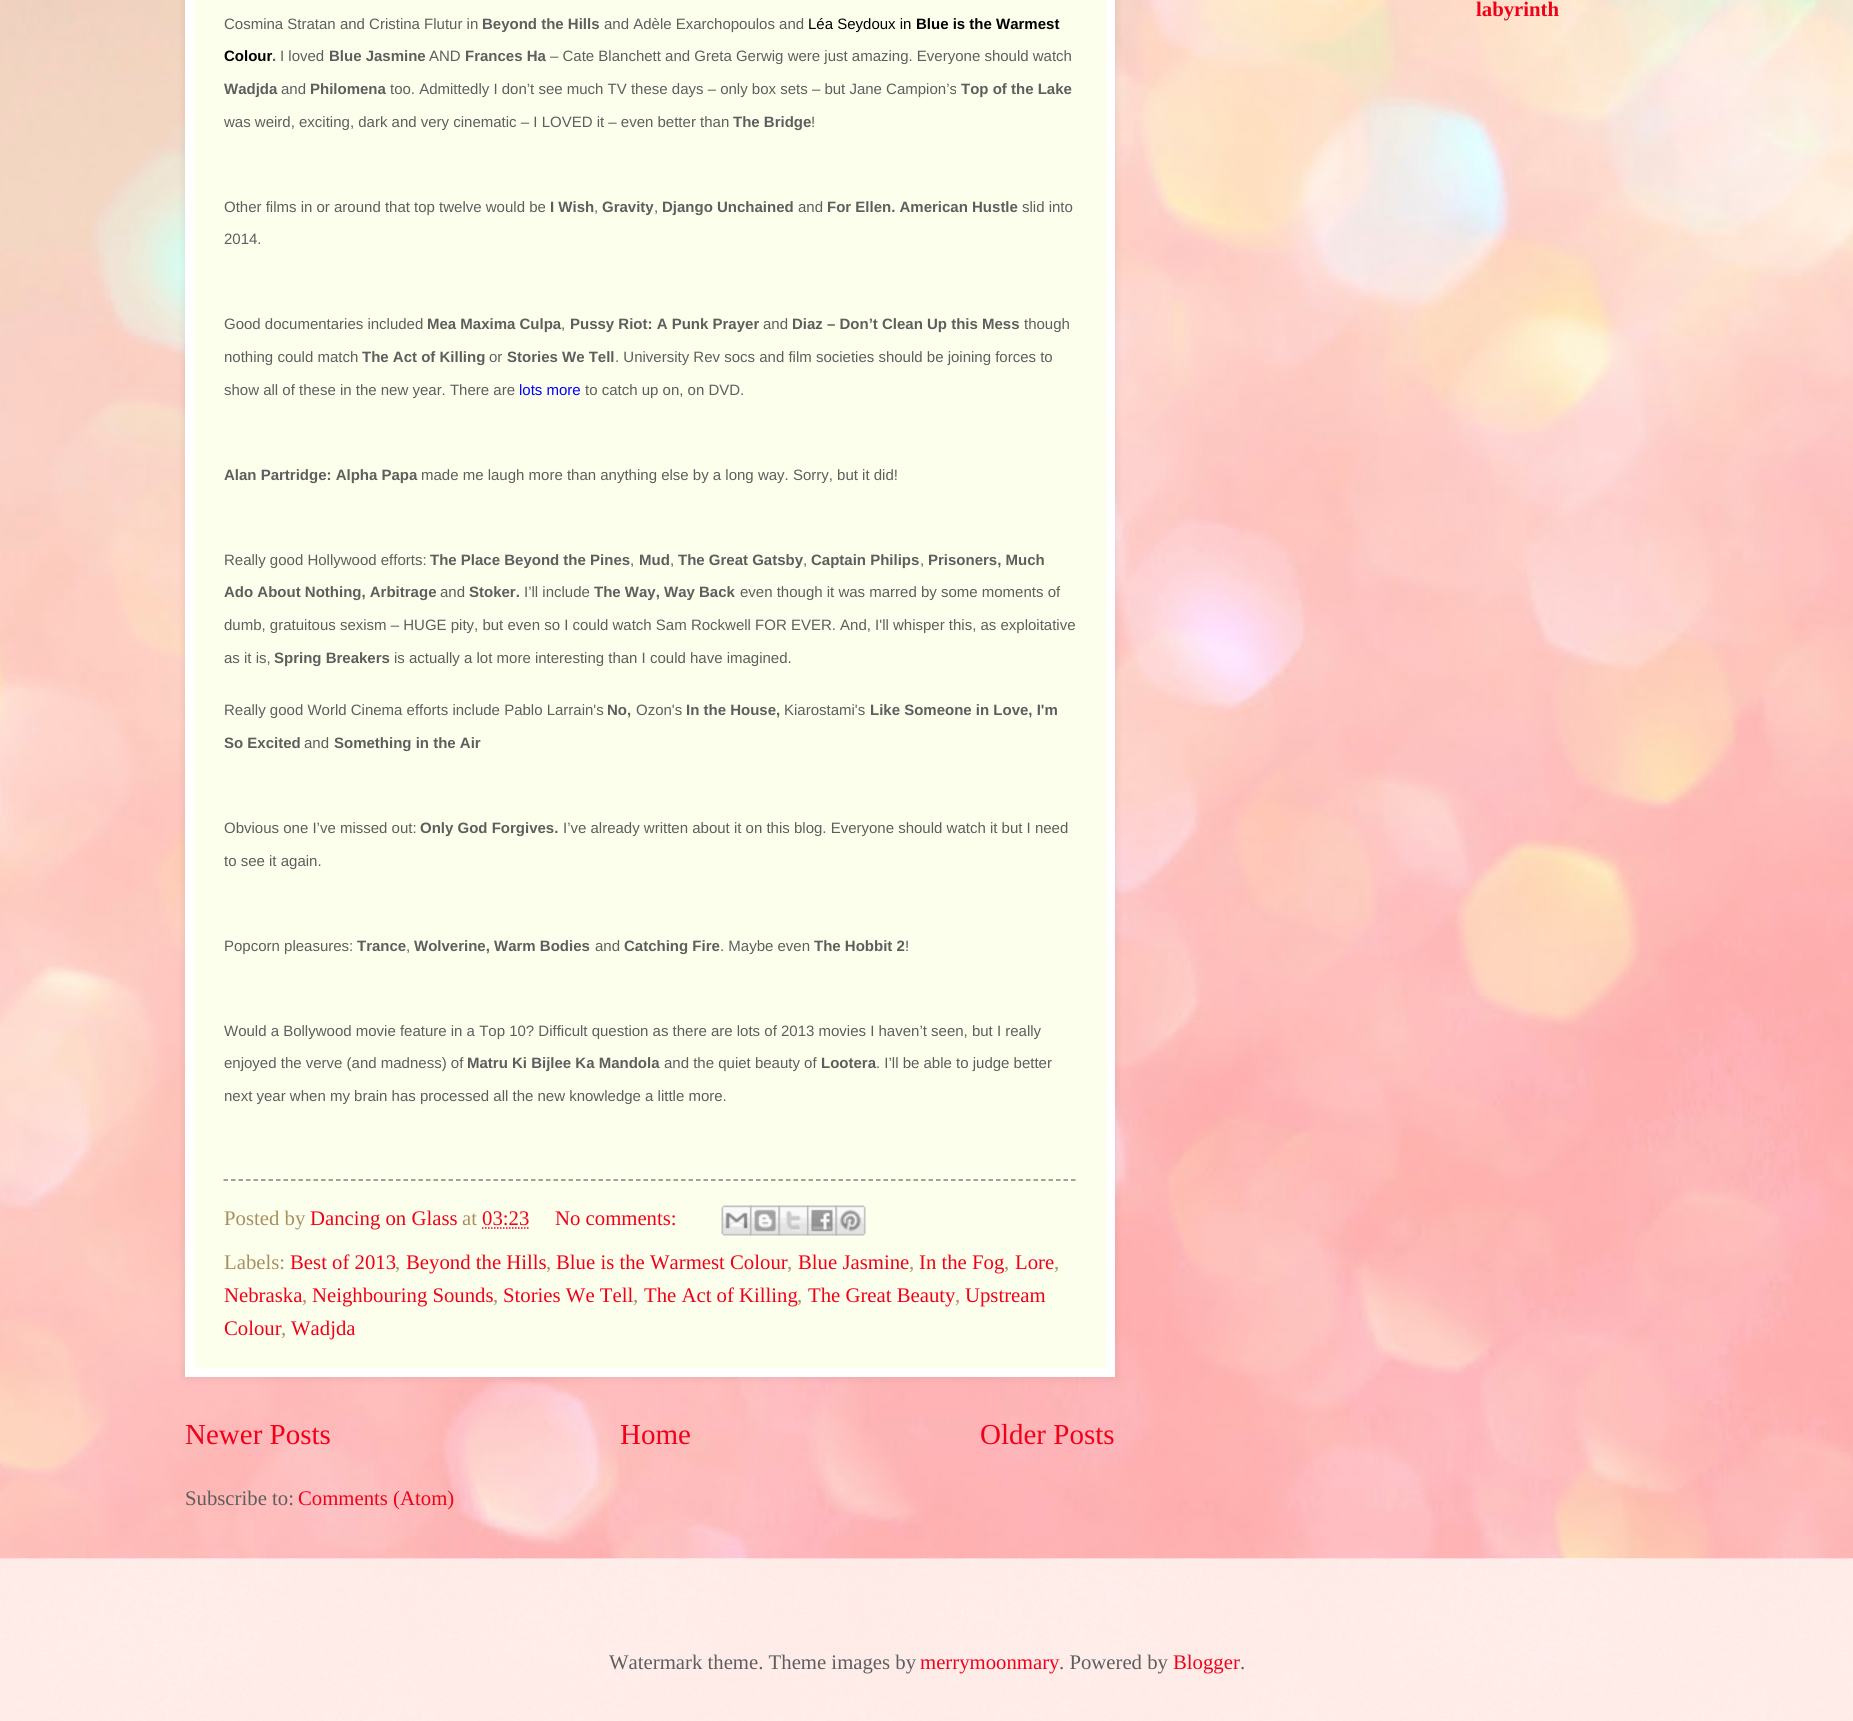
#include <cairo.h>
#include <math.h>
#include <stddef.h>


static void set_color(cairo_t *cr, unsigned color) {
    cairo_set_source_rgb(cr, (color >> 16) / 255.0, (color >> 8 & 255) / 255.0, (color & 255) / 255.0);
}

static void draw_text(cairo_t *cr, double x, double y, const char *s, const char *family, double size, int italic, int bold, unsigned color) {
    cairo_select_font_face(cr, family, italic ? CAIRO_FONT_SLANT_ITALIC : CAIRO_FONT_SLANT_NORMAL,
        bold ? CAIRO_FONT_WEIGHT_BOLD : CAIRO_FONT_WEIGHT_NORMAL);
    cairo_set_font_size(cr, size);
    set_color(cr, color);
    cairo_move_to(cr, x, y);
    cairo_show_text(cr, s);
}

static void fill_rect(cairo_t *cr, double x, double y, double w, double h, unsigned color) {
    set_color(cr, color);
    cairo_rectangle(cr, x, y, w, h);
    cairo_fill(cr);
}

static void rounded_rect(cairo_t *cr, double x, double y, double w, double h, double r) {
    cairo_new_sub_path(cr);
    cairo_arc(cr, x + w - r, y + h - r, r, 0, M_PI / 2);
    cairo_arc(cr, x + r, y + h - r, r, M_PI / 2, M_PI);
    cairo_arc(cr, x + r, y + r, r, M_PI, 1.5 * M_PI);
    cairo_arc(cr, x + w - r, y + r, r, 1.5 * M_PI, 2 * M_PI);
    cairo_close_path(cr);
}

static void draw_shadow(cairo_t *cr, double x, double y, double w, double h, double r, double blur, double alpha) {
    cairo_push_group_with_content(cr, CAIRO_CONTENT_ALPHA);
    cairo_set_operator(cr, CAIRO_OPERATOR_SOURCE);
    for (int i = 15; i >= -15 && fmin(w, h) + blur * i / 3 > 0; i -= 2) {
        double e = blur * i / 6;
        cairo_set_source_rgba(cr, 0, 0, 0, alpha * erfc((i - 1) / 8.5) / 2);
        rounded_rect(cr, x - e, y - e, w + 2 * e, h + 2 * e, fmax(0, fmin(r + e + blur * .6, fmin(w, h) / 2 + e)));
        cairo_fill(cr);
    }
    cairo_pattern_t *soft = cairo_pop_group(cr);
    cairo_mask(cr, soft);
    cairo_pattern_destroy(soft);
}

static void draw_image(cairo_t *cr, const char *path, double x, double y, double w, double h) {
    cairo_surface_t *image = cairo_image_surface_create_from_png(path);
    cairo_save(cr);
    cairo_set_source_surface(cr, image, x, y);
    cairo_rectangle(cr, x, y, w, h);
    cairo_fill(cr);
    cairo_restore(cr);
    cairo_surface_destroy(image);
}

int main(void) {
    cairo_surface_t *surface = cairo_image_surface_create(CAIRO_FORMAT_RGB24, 1853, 1721);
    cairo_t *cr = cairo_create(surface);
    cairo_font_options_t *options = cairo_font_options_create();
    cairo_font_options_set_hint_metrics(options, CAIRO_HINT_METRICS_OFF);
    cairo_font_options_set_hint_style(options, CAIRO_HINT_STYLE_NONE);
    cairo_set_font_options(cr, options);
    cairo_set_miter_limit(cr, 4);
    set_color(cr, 0xFFFFFF);
    cairo_paint(cr);
    draw_image(cr, "assets/img1.png", 0, 0, 1853, 1559);
    draw_text(cr, 1476, 16, "labyrinth", "Liberation Serif", 20.75, 0, 1, 0xF2001A);
    set_color(cr, 0x000000);
    draw_shadow(cr, 185, -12, 930, 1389, 0, 4, 0.1);
    set_color(cr, 0xFCFFEC);
    cairo_rectangle(cr, 189.5, -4.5, 921, 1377);
    cairo_fill_preserve(cr);
    set_color(cr, 0xFFFFFF);
    cairo_set_line_width(cr, 9);
    cairo_stroke(cr);
    draw_text(cr, 224, 29, "Cosmina Stratan and Cristina Flutur in", "Liberation Sans", 15, 0, 0, 0x5E5E5E);
    draw_text(cr, 482, 29, "Beyond the Hills", "Liberation Sans", 15, 0, 1, 0x5E5E5E);
    draw_text(cr, 604, 29, "and Adèle Exarchopoulos and", "Liberation Sans", 15, 0, 0, 0x5E5E5E);
    draw_text(cr, 808, 29, "Léa Seydoux in", "Liberation Sans", 15, 0, 0, 0x000000);
    draw_text(cr, 916, 29, "Blue is the Warmest", "Liberation Sans", 15, 0, 1, 0x000000);
    draw_text(cr, 224, 61, "Colour", "Liberation Sans", 15, 0, 1, 0x000000);
    draw_text(cr, 272, 61, ".", "Liberation Sans", 15, 0, 1, 0x5E5E5E);
    draw_text(cr, 280, 61, "I loved", "Liberation Sans", 15, 0, 0, 0x5E5E5E);
    draw_text(cr, 329, 61, "Blue Jasmine", "Liberation Sans", 15, 0, 1, 0x5E5E5E);
    draw_text(cr, 429, 61, "AND", "Liberation Sans", 15, 0, 0, 0x5E5E5E);
    draw_text(cr, 465, 61, "Frances Ha", "Liberation Sans", 15, 0, 1, 0x5E5E5E);
    draw_text(cr, 550, 61, "– Cate Blanchett and Greta Gerwig were just amazing. Everyone should watch", "Liberation Sans", 15, 0, 0, 0x5E5E5E);
    draw_text(cr, 224, 94, "Wadjda", "Liberation Sans", 15, 0, 1, 0x5E5E5E);
    draw_text(cr, 281, 94, "and", "Liberation Sans", 15, 0, 0, 0x5E5E5E);
    draw_text(cr, 310, 94, "Philomena", "Liberation Sans", 15, 0, 1, 0x5E5E5E);
    draw_text(cr, 390, 94, "too. Admittedly I don’t see much TV these days – only box sets – but Jane Campion’s", "Liberation Sans", 15, 0, 0, 0x5E5E5E);
    draw_text(cr, 961, 94, "Top of the Lake", "Liberation Sans", 15, 0, 1, 0x5E5E5E);
    draw_text(cr, 224, 127, "was weird, exciting, dark and very cinematic – I LOVED it – even better than", "Liberation Sans", 15, 0, 0, 0x5E5E5E);
    draw_text(cr, 733, 127, "The Bridge", "Liberation Sans", 15, 0, 1, 0x5E5E5E);
    draw_text(cr, 811, 127, "!", "Liberation Sans", 15, 0, 0, 0x5E5E5E);
    draw_text(cr, 224, 212, "Other films in or around that top twelve would be", "Liberation Sans", 15, 0, 0, 0x5E5E5E);
    draw_text(cr, 550, 212, "I Wish", "Liberation Sans", 15, 0, 1, 0x5E5E5E);
    draw_text(cr, 594, 212, ",", "Liberation Sans", 15, 0, 0, 0x5E5E5E);
    draw_text(cr, 602, 212, "Gravity", "Liberation Sans", 15, 0, 1, 0x5E5E5E);
    draw_text(cr, 654, 212, ",", "Liberation Sans", 15, 0, 0, 0x5E5E5E);
    draw_text(cr, 662, 212, "Django Unchained", "Liberation Sans", 15, 0, 1, 0x5E5E5E);
    draw_text(cr, 798, 212, "and", "Liberation Sans", 15, 0, 0, 0x5E5E5E);
    draw_text(cr, 827, 212, "For Ellen. American Hustle", "Liberation Sans", 15, 0, 1, 0x5E5E5E);
    draw_text(cr, 1022, 212, "slid into", "Liberation Sans", 15, 0, 0, 0x5E5E5E);
    draw_text(cr, 224, 244, "2014.", "Liberation Sans", 15, 0, 0, 0x5E5E5E);
    draw_text(cr, 224, 329, "Good documentaries included", "Liberation Sans", 15, 0, 0, 0x5E5E5E);
    draw_text(cr, 427, 329, "Mea Maxima Culpa", "Liberation Sans", 15, 0, 1, 0x5E5E5E);
    draw_text(cr, 561, 329, ",", "Liberation Sans", 15, 0, 0, 0x5E5E5E);
    draw_text(cr, 570, 329, "Pussy Riot: A Punk Prayer", "Liberation Sans", 15, 0, 1, 0x5E5E5E);
    draw_text(cr, 763, 329, "and", "Liberation Sans", 15, 0, 0, 0x5E5E5E);
    draw_text(cr, 792, 329, "Diaz – Don’t Clean Up this Mess", "Liberation Sans", 15, 0, 1, 0x5E5E5E);
    draw_text(cr, 1024, 329, "though", "Liberation Sans", 15, 0, 0, 0x5E5E5E);
    draw_text(cr, 224, 362, "nothing could match", "Liberation Sans", 15, 0, 0, 0x5E5E5E);
    draw_text(cr, 362, 362, "The Act of Killing", "Liberation Sans", 15, 0, 1, 0x5E5E5E);
    draw_text(cr, 489, 362, "or", "Liberation Sans", 15, 0, 0, 0x5E5E5E);
    draw_text(cr, 507, 362, "Stories We Tell", "Liberation Sans", 15, 0, 1, 0x5E5E5E);
    draw_text(cr, 615, 362, ". University Rev socs and film societies should be joining forces to", "Liberation Sans", 15, 0, 0, 0x5E5E5E);
    draw_text(cr, 224, 395, "show all of these in the new year. There are", "Liberation Sans", 15, 0, 0, 0x5E5E5E);
    draw_text(cr, 519, 395, "lots more", "Liberation Sans", 15, 0, 0, 0x0000FF);
    draw_text(cr, 585, 395, "to catch up on, on DVD.", "Liberation Sans", 15, 0, 0, 0x5E5E5E);
    draw_text(cr, 224, 480, "Alan Partridge: Alpha Papa", "Liberation Sans", 15, 0, 1, 0x5E5E5E);
    draw_text(cr, 421, 480, "made me laugh more than anything else by a long way. Sorry, but it did!", "Liberation Sans", 15, 0, 0, 0x5E5E5E);
    draw_text(cr, 224, 565, "Really good Hollywood efforts:", "Liberation Sans", 15, 0, 0, 0x5E5E5E);
    draw_text(cr, 430, 565, "The Place Beyond the Pines", "Liberation Sans", 15, 0, 1, 0x5E5E5E);
    draw_text(cr, 630, 565, ",", "Liberation Sans", 15, 0, 0, 0x5E5E5E);
    draw_text(cr, 639, 565, "Mud", "Liberation Sans", 15, 0, 1, 0x5E5E5E);
    draw_text(cr, 670, 565, ",", "Liberation Sans", 15, 0, 0, 0x5E5E5E);
    draw_text(cr, 678, 565, "The Great Gatsby", "Liberation Sans", 15, 0, 1, 0x5E5E5E);
    draw_text(cr, 803, 565, ",", "Liberation Sans", 15, 0, 0, 0x5E5E5E);
    draw_text(cr, 811, 565, "Captain Philips", "Liberation Sans", 15, 0, 1, 0x5E5E5E);
    draw_text(cr, 920, 565, ",", "Liberation Sans", 15, 0, 0, 0x5E5E5E);
    draw_text(cr, 928, 565, "Prisoners, Much", "Liberation Sans", 15, 0, 1, 0x5E5E5E);
    draw_text(cr, 224, 597, "Ado About Nothing, Arbitrage", "Liberation Sans", 15, 0, 1, 0x5E5E5E);
    draw_text(cr, 440, 597, "and", "Liberation Sans", 15, 0, 0, 0x5E5E5E);
    draw_text(cr, 469, 597, "Stoker.", "Liberation Sans", 15, 0, 1, 0x5E5E5E);
    draw_text(cr, 524, 597, "I’ll include", "Liberation Sans", 15, 0, 0, 0x5E5E5E);
    draw_text(cr, 594, 597, "The Way, Way Back", "Liberation Sans", 15, 0, 1, 0x5E5E5E);
    draw_text(cr, 740, 597, "even though it was marred by some moments of", "Liberation Sans", 15, 0, 0, 0x5E5E5E);
    draw_text(cr, 224, 630, "dumb, gratuitous sexism – HUGE pity, but even so I could watch Sam Rockwell FOR EVER. And, I'll whisper this, as exploitative", "Liberation Sans", 15, 0, 0, 0x5E5E5E);
    draw_text(cr, 224, 663, "as it is,", "Liberation Sans", 15, 0, 0, 0x5E5E5E);
    draw_text(cr, 274, 663, "Spring Breakers", "Liberation Sans", 15, 0, 1, 0x5E5E5E);
    draw_text(cr, 394, 663, "is actually a lot more interesting than I could have imagined.", "Liberation Sans", 15, 0, 0, 0x5E5E5E);
    draw_text(cr, 224, 715, "Really good World Cinema efforts include Pablo Larrain's", "Liberation Sans", 15, 0, 0, 0x5E5E5E);
    draw_text(cr, 607, 715, "No,", "Liberation Sans", 15, 0, 1, 0x5E5E5E);
    draw_text(cr, 636, 715, "Ozon's", "Liberation Sans", 15, 0, 0, 0x5E5E5E);
    draw_text(cr, 686, 715, "In the House,", "Liberation Sans", 15, 0, 1, 0x5E5E5E);
    draw_text(cr, 784, 715, "Kiarostami's", "Liberation Sans", 15, 0, 0, 0x5E5E5E);
    draw_text(cr, 870, 715, "Like Someone in Love, I'm", "Liberation Sans", 15, 0, 1, 0x5E5E5E);
    draw_text(cr, 224, 748, "So Excited", "Liberation Sans", 15, 0, 1, 0x5E5E5E);
    draw_text(cr, 304, 748, "and", "Liberation Sans", 15, 0, 0, 0x5E5E5E);
    draw_text(cr, 334, 748, "Something in the Air", "Liberation Sans", 15, 0, 1, 0x5E5E5E);
    draw_text(cr, 224, 833, "Obvious one I’ve missed out:", "Liberation Sans", 15, 0, 0, 0x5E5E5E);
    draw_text(cr, 420, 833, "Only God Forgives.", "Liberation Sans", 15, 0, 1, 0x5E5E5E);
    draw_text(cr, 563, 833, "I’ve already written about it on this blog. Everyone should watch it but I need", "Liberation Sans", 15, 0, 0, 0x5E5E5E);
    draw_text(cr, 224, 866, "to see it again.", "Liberation Sans", 15, 0, 0, 0x5E5E5E);
    draw_text(cr, 224, 951, "Popcorn pleasures:", "Liberation Sans", 15, 0, 0, 0x5E5E5E);
    draw_text(cr, 357, 951, "Trance", "Liberation Sans", 15, 0, 1, 0x5E5E5E);
    draw_text(cr, 406, 951, ",", "Liberation Sans", 15, 0, 0, 0x5E5E5E);
    draw_text(cr, 414, 951, "Wolverine, Warm Bodies", "Liberation Sans", 15, 0, 1, 0x5E5E5E);
    draw_text(cr, 595, 951, "and", "Liberation Sans", 15, 0, 0, 0x5E5E5E);
    draw_text(cr, 624, 951, "Catching Fire", "Liberation Sans", 15, 0, 1, 0x5E5E5E);
    draw_text(cr, 720, 951, ". Maybe even", "Liberation Sans", 15, 0, 0, 0x5E5E5E);
    draw_text(cr, 814, 951, "The Hobbit 2", "Liberation Sans", 15, 0, 1, 0x5E5E5E);
    draw_text(cr, 905, 951, "!", "Liberation Sans", 15, 0, 0, 0x5E5E5E);
    draw_text(cr, 224, 1036, "Would a Bollywood movie feature in a Top 10? Difficult question as there are lots of 2013 movies I haven’t seen, but I really", "Liberation Sans", 15, 0, 0, 0x5E5E5E);
    draw_text(cr, 224, 1068, "enjoyed the verve (and madness) of", "Liberation Sans", 15, 0, 0, 0x5E5E5E);
    draw_text(cr, 467, 1068, "Matru Ki Bijlee Ka Mandola", "Liberation Sans", 15, 0, 1, 0x5E5E5E);
    draw_text(cr, 664, 1068, "and the quiet beauty of", "Liberation Sans", 15, 0, 0, 0x5E5E5E);
    draw_text(cr, 821, 1068, "Lootera", "Liberation Sans", 15, 0, 1, 0x5E5E5E);
    draw_text(cr, 876, 1068, ". I’ll be able to judge better", "Liberation Sans", 15, 0, 0, 0x5E5E5E);
    draw_text(cr, 224, 1101, "next year when my brain has processed all the new knowledge a little more.", "Liberation Sans", 15, 0, 0, 0x5E5E5E);
    cairo_new_path(cr);
    cairo_move_to(cr, 223.5, 1180);
    cairo_line_to(cr, 1075.5, 1180);
    set_color(cr, 0x858585);
    cairo_set_line_width(cr, 1.5);
    cairo_set_dash(cr, (double[]){4.5, 3}, 2, 0);
    cairo_stroke(cr);
    draw_text(cr, 224, 1225, "Posted by", "Liberation Serif", 20.75, 0, 0, 0xA88F63);
    draw_text(cr, 310, 1225, "Dancing on Glass", "Liberation Serif", 20.75, 0, 0, 0xF2001A);
    draw_text(cr, 462, 1225, "at", "Liberation Serif", 20.75, 0, 0, 0xA88F63);
    draw_text(cr, 482, 1225, "03:23", "Liberation Serif", 20.75, 0, 0, 0xF2001A);
    cairo_new_path(cr);
    cairo_move_to(cr, 482, 1228);
    cairo_line_to(cr, 529.5, 1228);
    cairo_set_dash(cr, (double[]){1.5, 1.5}, 2, 0);
    cairo_stroke(cr);
    draw_text(cr, 555, 1225, "No comments:", "Liberation Serif", 20.75, 0, 0, 0xF2001A);
    draw_image(cr, "assets/img2.png", 721, 1205, 31, 31);
    draw_image(cr, "assets/img3.png", 750, 1205, 30, 31);
    draw_image(cr, "assets/img4.png", 778, 1205, 31, 31);
    draw_image(cr, "assets/img5.png", 807, 1205, 30, 31);
    draw_image(cr, "assets/img6.png", 835, 1205, 31, 31);
    draw_text(cr, 224, 1269, "Labels:", "Liberation Serif", 20.75, 0, 0, 0xA88F63);
    draw_text(cr, 290, 1269, "Best of 2013", "Liberation Serif", 20.75, 0, 0, 0xF2001A);
    draw_text(cr, 395, 1269, ",", "Liberation Serif", 20.75, 0, 0, 0xA88F63);
    draw_text(cr, 406, 1269, "Beyond the Hills", "Liberation Serif", 20.75, 0, 0, 0xF2001A);
    draw_text(cr, 546, 1269, ",", "Liberation Serif", 20.75, 0, 0, 0xA88F63);
    draw_text(cr, 556, 1269, "Blue is the Warmest Colour", "Liberation Serif", 20.75, 0, 0, 0xF2001A);
    draw_text(cr, 787, 1269, ",", "Liberation Serif", 20.75, 0, 0, 0xA88F63);
    draw_text(cr, 798, 1269, "Blue Jasmine", "Liberation Serif", 20.75, 0, 0, 0xF2001A);
    draw_text(cr, 909, 1269, ",", "Liberation Serif", 20.75, 0, 0, 0xA88F63);
    draw_text(cr, 919, 1269, "In the Fog", "Liberation Serif", 20.75, 0, 0, 0xF2001A);
    draw_text(cr, 1004, 1269, ",", "Liberation Serif", 20.75, 0, 0, 0xA88F63);
    draw_text(cr, 1015, 1269, "Lore", "Liberation Serif", 20.75, 0, 0, 0xF2001A);
    draw_text(cr, 1054, 1269, ",", "Liberation Serif", 20.75, 0, 0, 0xA88F63);
    draw_text(cr, 224, 1302, "Nebraska", "Liberation Serif", 20.75, 0, 0, 0xF2001A);
    draw_text(cr, 302, 1302, ",", "Liberation Serif", 20.75, 0, 0, 0xA88F63);
    draw_text(cr, 312, 1302, "Neighbouring Sounds", "Liberation Serif", 20.75, 0, 0, 0xF2001A);
    draw_text(cr, 493, 1302, ",", "Liberation Serif", 20.75, 0, 0, 0xA88F63);
    draw_text(cr, 503, 1302, "Stories We Tell", "Liberation Serif", 20.75, 0, 0, 0xF2001A);
    draw_text(cr, 633, 1302, ",", "Liberation Serif", 20.75, 0, 0, 0xA88F63);
    draw_text(cr, 644, 1302, "The Act of Killing", "Liberation Serif", 20.75, 0, 0, 0xF2001A);
    draw_text(cr, 797, 1302, ",", "Liberation Serif", 20.75, 0, 0, 0xA88F63);
    draw_text(cr, 808, 1302, "The Great Beauty", "Liberation Serif", 20.75, 0, 0, 0xF2001A);
    draw_text(cr, 955, 1302, ",", "Liberation Serif", 20.75, 0, 0, 0xA88F63);
    draw_text(cr, 965, 1302, "Upstream", "Liberation Serif", 20.75, 0, 0, 0xF2001A);
    draw_text(cr, 224, 1335, "Colour", "Liberation Serif", 20.75, 0, 0, 0xF2001A);
    draw_text(cr, 281, 1335, ",", "Liberation Serif", 20.75, 0, 0, 0xA88F63);
    draw_text(cr, 291, 1335, "Wadjda", "Liberation Serif", 20.75, 0, 0, 0xF2001A);
    draw_text(cr, 185, 1444, "Newer Posts", "Liberation Serif", 29, 0, 0, 0xF2001A);
    draw_text(cr, 620, 1444, "Home", "Liberation Serif", 29, 0, 0, 0xF2001A);
    draw_text(cr, 980, 1444, "Older Posts", "Liberation Serif", 29, 0, 0, 0xF2001A);
    draw_text(cr, 185, 1505, "Subscribe to:", "Liberation Serif", 20.75, 0, 0, 0x5E5E5E);
    draw_text(cr, 298, 1505, "Comments (Atom)", "Liberation Serif", 20.75, 0, 0, 0xF2001A);
    fill_rect(cr, 0, 1559, 1853, 162, 0xFFDAD4);
    draw_image(cr, "assets/img7.png", 0, 1558, 1853, 163);
    draw_text(cr, 609, 1669, "Watermark theme. Theme images by", "Liberation Serif", 20.75, 0, 0, 0x5E5E5E);
    draw_text(cr, 920, 1669, "merrymoonmary", "Liberation Serif", 20.75, 0, 0, 0xF2001A);
    draw_text(cr, 1059, 1669, ". Powered by", "Liberation Serif", 20.75, 0, 0, 0x5E5E5E);
    draw_text(cr, 1173, 1669, "Blogger", "Liberation Serif", 20.75, 0, 0, 0xF2001A);
    draw_text(cr, 1240, 1669, ".", "Liberation Serif", 20.75, 0, 0, 0x5E5E5E);
    cairo_surface_write_to_png(surface, "output.png");
    cairo_font_options_destroy(options);
    cairo_destroy(cr);
    cairo_surface_destroy(surface);
    return 0;
}
